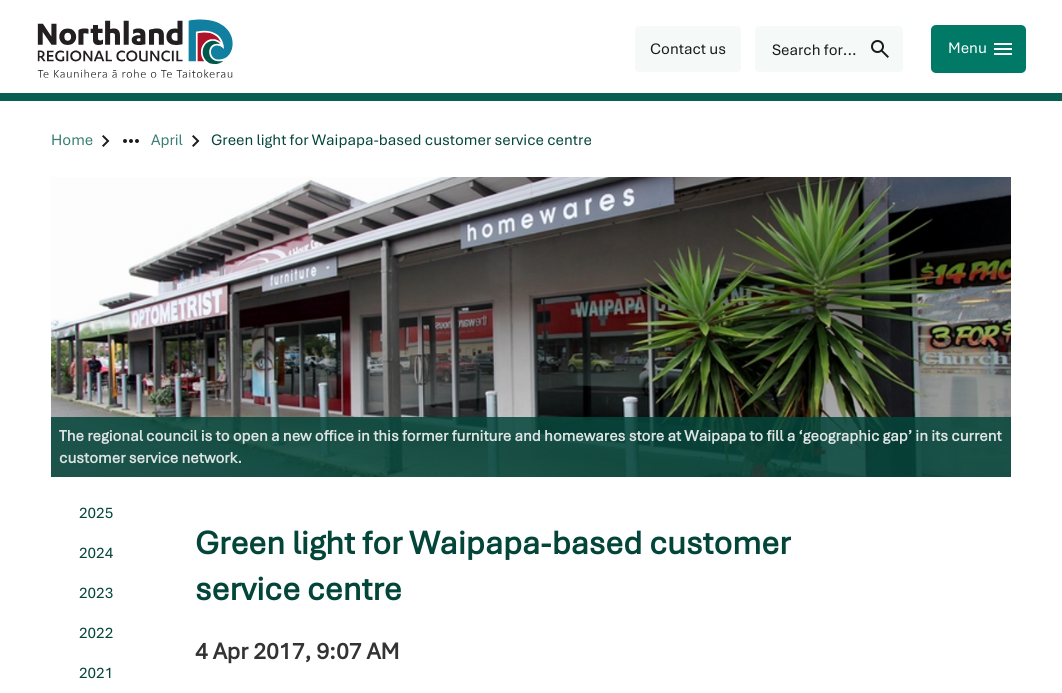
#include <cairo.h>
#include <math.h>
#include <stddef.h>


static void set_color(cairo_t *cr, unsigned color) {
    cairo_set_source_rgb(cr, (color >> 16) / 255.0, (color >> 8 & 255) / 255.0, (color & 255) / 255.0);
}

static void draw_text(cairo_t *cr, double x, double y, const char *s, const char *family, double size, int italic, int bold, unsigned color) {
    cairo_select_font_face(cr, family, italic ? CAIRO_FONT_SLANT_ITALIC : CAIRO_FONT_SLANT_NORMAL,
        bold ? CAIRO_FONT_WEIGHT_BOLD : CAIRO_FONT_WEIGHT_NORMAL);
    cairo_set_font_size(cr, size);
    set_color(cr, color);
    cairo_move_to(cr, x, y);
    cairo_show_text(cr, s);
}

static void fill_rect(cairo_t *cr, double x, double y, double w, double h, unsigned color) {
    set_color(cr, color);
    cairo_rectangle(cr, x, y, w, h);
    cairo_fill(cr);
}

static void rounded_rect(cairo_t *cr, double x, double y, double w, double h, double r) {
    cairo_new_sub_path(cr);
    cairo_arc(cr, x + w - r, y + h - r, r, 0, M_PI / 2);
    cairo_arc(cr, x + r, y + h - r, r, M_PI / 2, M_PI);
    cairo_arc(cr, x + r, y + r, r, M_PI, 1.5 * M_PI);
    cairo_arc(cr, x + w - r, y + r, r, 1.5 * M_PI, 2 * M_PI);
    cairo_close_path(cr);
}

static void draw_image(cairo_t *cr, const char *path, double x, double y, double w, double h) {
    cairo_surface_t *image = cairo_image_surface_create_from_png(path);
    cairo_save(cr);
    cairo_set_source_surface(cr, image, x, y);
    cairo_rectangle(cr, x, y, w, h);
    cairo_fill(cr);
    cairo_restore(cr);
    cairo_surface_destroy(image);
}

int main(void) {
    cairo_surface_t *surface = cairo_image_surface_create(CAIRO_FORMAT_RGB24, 1062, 693);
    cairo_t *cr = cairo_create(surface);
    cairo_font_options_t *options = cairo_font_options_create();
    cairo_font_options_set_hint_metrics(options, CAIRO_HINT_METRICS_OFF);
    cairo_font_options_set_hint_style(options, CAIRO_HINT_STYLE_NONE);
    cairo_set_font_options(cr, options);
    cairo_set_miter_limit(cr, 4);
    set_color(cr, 0xFFFFFF);
    cairo_paint(cr);
    fill_rect(cr, 0, 93, 1062, 8, 0x085E50);
    draw_image(cr, "assets/img1.png", 37, 19, 196, 59);
    set_color(cr, 0xF5FAF9);
    rounded_rect(cr, 634.5, 25.5, 107, 47, 4.5);
    cairo_fill_preserve(cr);
    set_color(cr, 0xFFFFFF);
    cairo_set_line_width(cr, 1);
    cairo_stroke(cr);
    draw_text(cr, 650, 54, "Contact us", "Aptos", 16, 0, 0, 0x171C1D);
    set_color(cr, 0xF5FAF9);
    rounded_rect(cr, 754.5, 25.5, 149, 47, 4.5);
    cairo_fill_preserve(cr);
    set_color(cr, 0xFFFFFF);
    cairo_stroke(cr);
    draw_text(cr, 772, 55, "Search for...", "Aptos", 16, 0, 0, 0x171C1D);
    draw_image(cr, "assets/img2.png", 871, 40, 18, 18);
    set_color(cr, 0x007A66);
    rounded_rect(cr, 931, 25, 95, 48, 5);
    cairo_fill(cr);
    draw_text(cr, 948, 53, "Menu", "Aptos", 16, 0, 0, 0xFFFFFF);
    draw_image(cr, "assets/img3.png", 994, 43, 18, 12);
    draw_text(cr, 51, 145, "Home", "Aptos", 16, 0, 0, 0x397E73);
    draw_image(cr, "assets/img4.png", 102, 135, 8, 12);
    draw_image(cr, "assets/img5.png", 123, 139, 16, 4);
    draw_text(cr, 151, 145, "April", "Aptos", 16, 0, 0, 0x397E73);
    draw_image(cr, "assets/img4.png", 192, 135, 8, 12);
    draw_text(cr, 211, 145, "Green light for Waipapa-based customer service centre", "Aptos", 16, 0, 0, 0x04453A);
    draw_image(cr, "assets/img6.png", 51, 177, 960, 300);
    cairo_set_source_rgba(cr, 0.016, 0.271, 0.227, 0.85);
    cairo_rectangle(cr, 51, 417, 960, 60);
    cairo_fill(cr);
    draw_text(cr, 59, 441, "The regional council is to open a new office in this former furniture and homewares store at Waipapa to fill a ‘geographic gap’ in its current", "Aptos", 16, 0, 1, 0xDCE4E3);
    draw_text(cr, 59, 463, "customer service network.", "Aptos", 16, 0, 1, 0xDCE4E3);
    draw_text(cr, 79, 518, "2025", "Aptos", 16, 0, 0, 0x04453A);
    draw_text(cr, 79, 558, "2024", "Aptos", 16, 0, 0, 0x04453A);
    draw_text(cr, 79, 598, "2023", "Aptos", 16, 0, 0, 0x04453A);
    draw_text(cr, 79, 638, "2022", "Aptos", 16, 0, 0, 0x04453A);
    draw_text(cr, 79, 678, "2021", "Aptos", 16, 0, 0, 0x04453A);
    draw_text(cr, 195, 554, "Green light for Waipapa-based customer", "Aptos", 34, 0, 1, 0x04453A);
    draw_text(cr, 195, 600, "service centre", "Aptos", 34, 0, 1, 0x04453A);
    draw_text(cr, 195, 659, "4 Apr 2017, 9:07 AM", "Aptos", 24, 0, 1, 0x333333);
    cairo_surface_write_to_png(surface, "output.png");
    cairo_font_options_destroy(options);
    cairo_destroy(cr);
    cairo_surface_destroy(surface);
    return 0;
}
